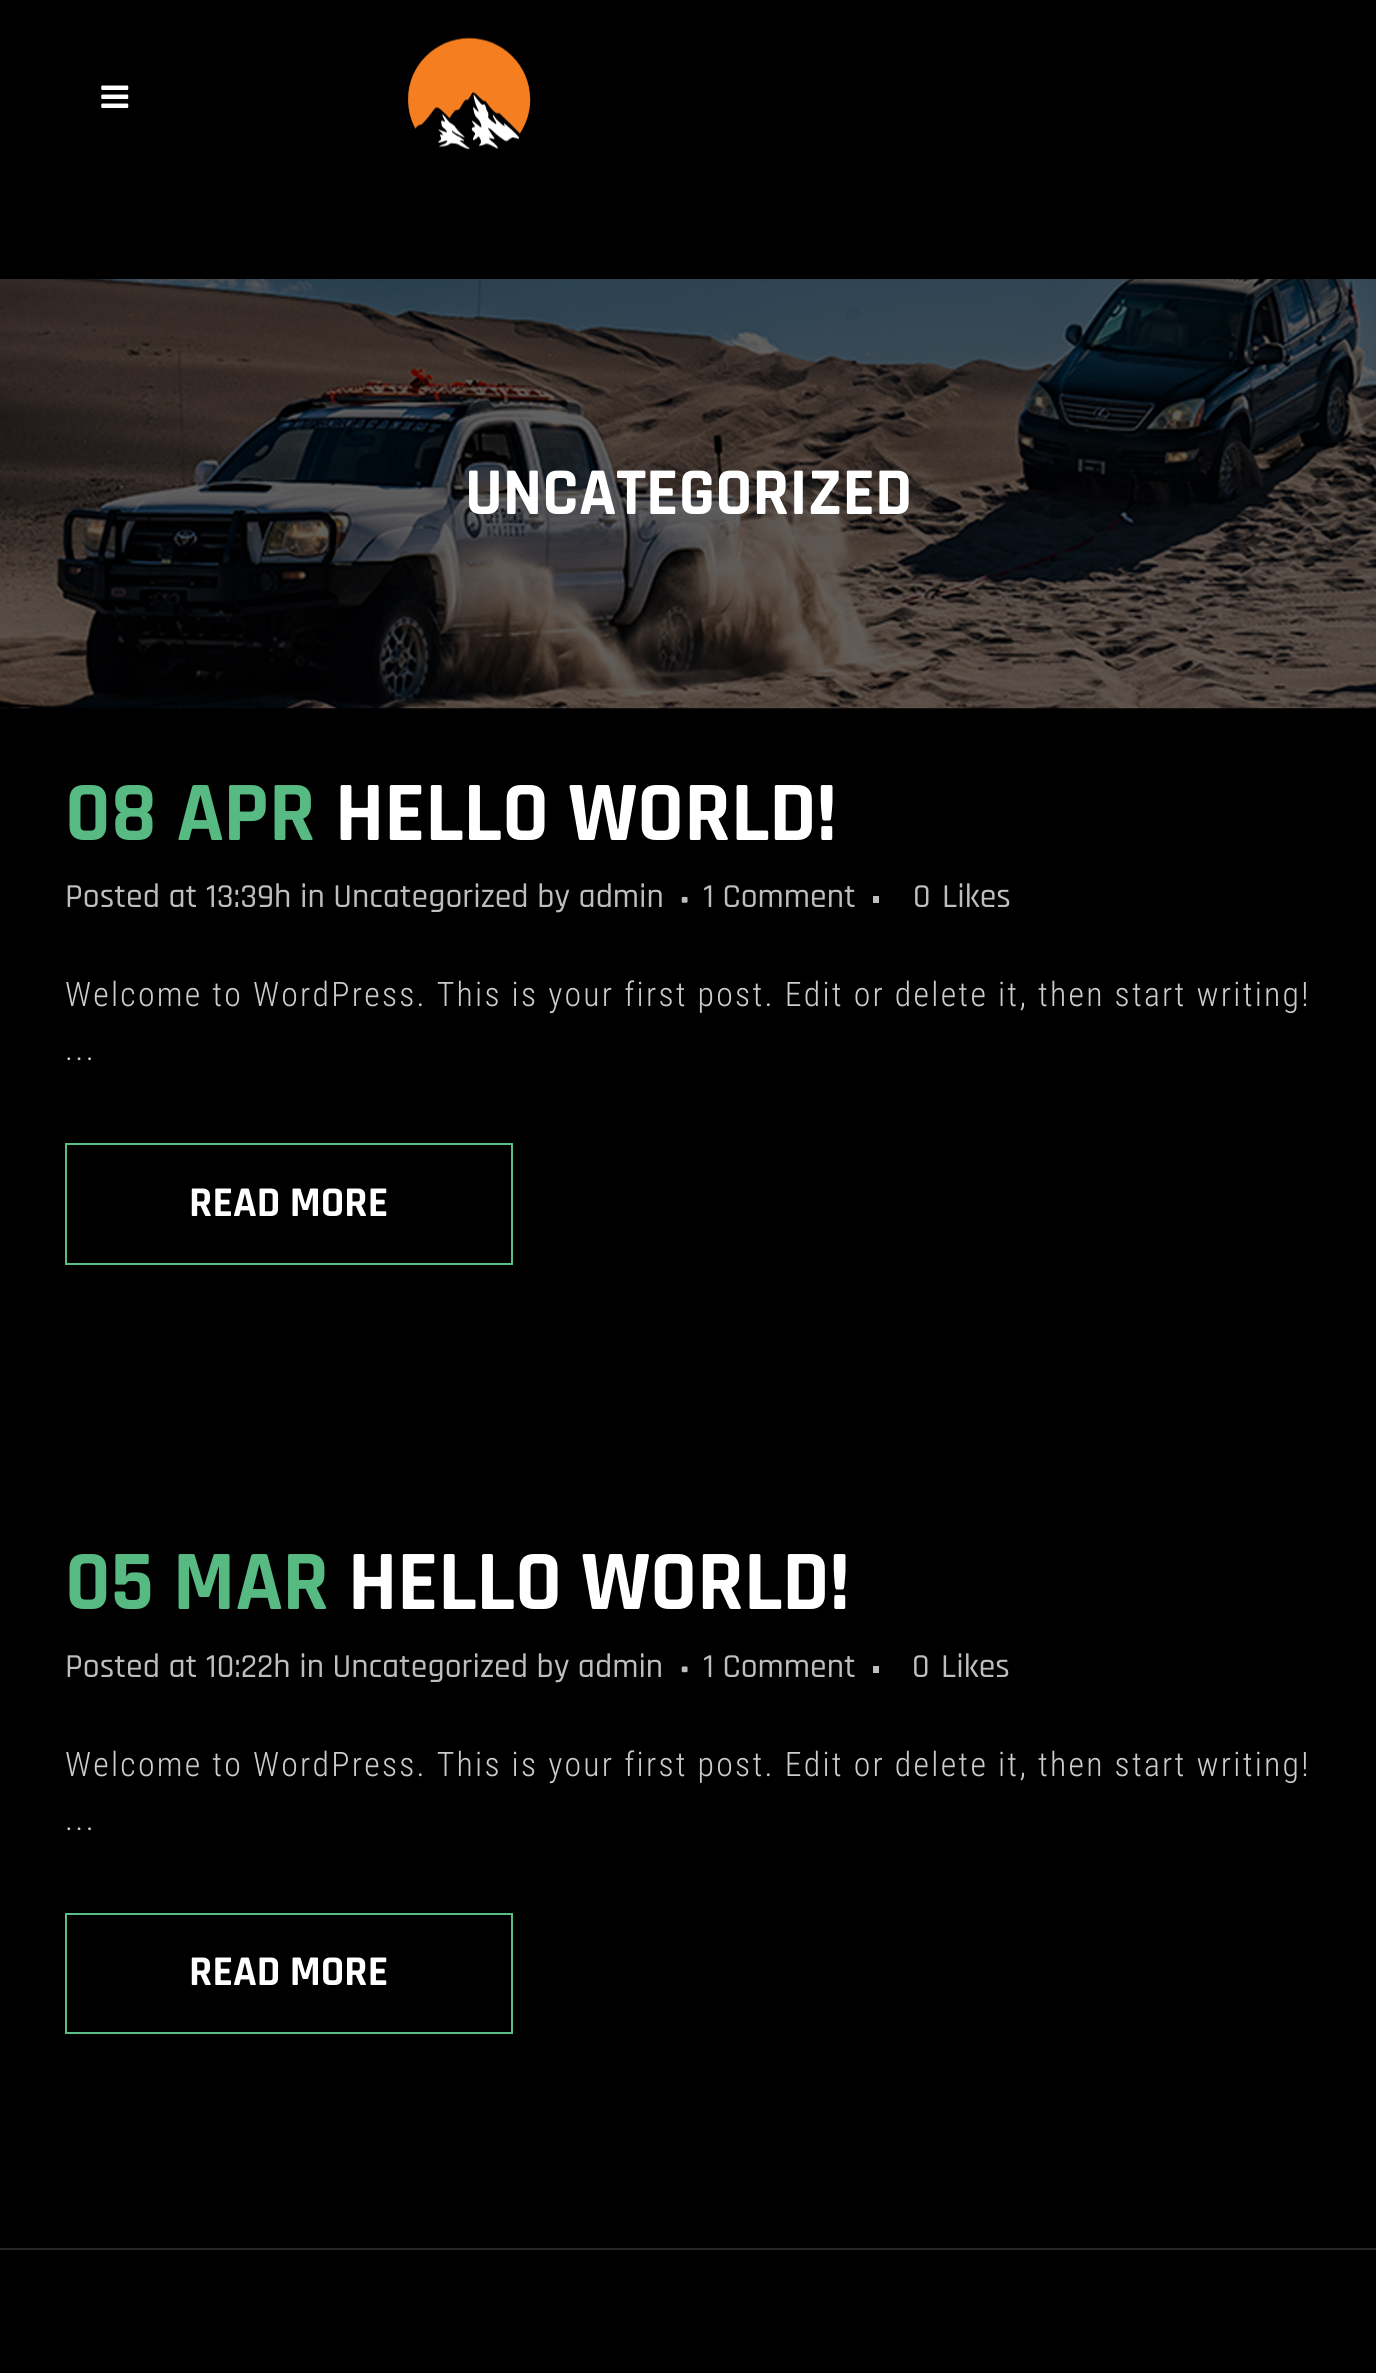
#include <cairo.h>
#include <math.h>
#include <stddef.h>


static void set_color(cairo_t *cr, unsigned color) {
    cairo_set_source_rgb(cr, (color >> 16) / 255.0, (color >> 8 & 255) / 255.0, (color & 255) / 255.0);
}

static void draw_text(cairo_t *cr, double x, double y, const char *s, const char *family, double size, int italic, int bold, unsigned color) {
    cairo_select_font_face(cr, family, italic ? CAIRO_FONT_SLANT_ITALIC : CAIRO_FONT_SLANT_NORMAL,
        bold ? CAIRO_FONT_WEIGHT_BOLD : CAIRO_FONT_WEIGHT_NORMAL);
    cairo_set_font_size(cr, size);
    set_color(cr, color);
    cairo_move_to(cr, x, y);
    cairo_show_text(cr, s);
}

static void draw_spaced(cairo_t *cr, double x, double y, const char *s, double letter, double word) {
    cairo_move_to(cr, x, y);
    while (*s) {
        char ch[5] = {0};
        int n = 0;
        do ch[n++] = *s++; while ((*s & 0xC0) == 0x80);
        cairo_show_text(cr, ch);
        cairo_rel_move_to(cr, letter + word * (*ch == ' '), 0);
    }
}

static void fill_rect(cairo_t *cr, double x, double y, double w, double h, unsigned color) {
    set_color(cr, color);
    cairo_rectangle(cr, x, y, w, h);
    cairo_fill(cr);
}

static void draw_image(cairo_t *cr, const char *path, double x, double y, double w, double h) {
    cairo_surface_t *image = cairo_image_surface_create_from_png(path);
    cairo_save(cr);
    cairo_set_source_surface(cr, image, x, y);
    cairo_rectangle(cr, x, y, w, h);
    cairo_fill(cr);
    cairo_restore(cr);
    cairo_surface_destroy(image);
}

int main(void) {
    cairo_surface_t *surface = cairo_image_surface_create(CAIRO_FORMAT_RGB24, 1376, 2373);
    cairo_t *cr = cairo_create(surface);
    cairo_font_options_t *options = cairo_font_options_create();
    cairo_font_options_set_hint_metrics(options, CAIRO_HINT_METRICS_OFF);
    cairo_font_options_set_hint_style(options, CAIRO_HINT_STYLE_NONE);
    cairo_set_font_options(cr, options);
    cairo_set_miter_limit(cr, 4);
    set_color(cr, 0x000000);
    cairo_paint(cr);
    draw_image(cr, "assets/img1.png", 101, 85, 28, 23);
    draw_image(cr, "assets/img2.png", 408, 37, 123, 113);
    draw_image(cr, "assets/img3.png", 0, 279, 1376, 430);
    draw_text(cr, 465, 514, "UNCATEGORIZED", "Rajdhani", 67.5, 0, 1, 0xFFFFFF);
    draw_text(cr, 65, 840, "08 APR", "Rajdhani", 85.5, 0, 1, 0x57BA83);
    draw_text(cr, 335, 840, "HELLO WORLD!", "Rajdhani", 85.5, 0, 1, 0xFFFFFF);
    draw_text(cr, 65, 907, "Posted at 13:39h in Uncategorized by admin", "Rajdhani Medium", 33.75, 0, 0, 0xBEBEBE);
    draw_image(cr, "assets/img4.png", 681, 896, 7, 7);
    draw_text(cr, 703, 907, "1 Comment", "Rajdhani Medium", 33.75, 0, 0, 0xBEBEBE);
    fill_rect(cr, 873, 896, 6, 7, 0xBEBEBE);
    draw_text(cr, 913, 907, "0", "Rajdhani Medium", 33.75, 0, 0, 0xBEBEBE);
    draw_text(cr, 942, 907, "Likes", "Rajdhani Medium", 33.75, 0, 0, 0xBEBEBE);
    cairo_select_font_face(cr, "Roboto Condensed Light", CAIRO_FONT_SLANT_NORMAL, CAIRO_FONT_WEIGHT_NORMAL);
    set_color(cr, 0xCCCCCC);
    draw_spaced(cr, 65, 1006, "Welcome to WordPress. This is your first post. Edit or delete it, then start writing!", 2.25, 0);
    draw_spaced(cr, 65, 1060, "...", 2.25, 0);
    cairo_rectangle(cr, 66, 1144, 446, 120);
    set_color(cr, 0x59BE85);
    cairo_stroke(cr);
    draw_text(cr, 189, 1216, "READ MORE", "Rajdhani", 42.75, 0, 1, 0xFFFFFF);
    draw_text(cr, 65, 1609, "05 MAR", "Rajdhani", 85.5, 0, 1, 0x57BA83);
    draw_text(cr, 348, 1609, "HELLO WORLD!", "Rajdhani", 85.5, 0, 1, 0xFFFFFF);
    draw_text(cr, 65, 1677, "Posted at 10:22h in Uncategorized by admin", "Rajdhani Medium", 33.75, 0, 0, 0xBEBEBE);
    draw_image(cr, "assets/img5.png", 681, 1666, 7, 7);
    draw_text(cr, 703, 1677, "1 Comment", "Rajdhani Medium", 33.75, 0, 0, 0xBEBEBE);
    fill_rect(cr, 873, 1666, 6, 7, 0xBEBEBE);
    draw_text(cr, 912, 1677, "0", "Rajdhani Medium", 33.75, 0, 0, 0xBEBEBE);
    draw_text(cr, 941, 1677, "Likes", "Rajdhani Medium", 33.75, 0, 0, 0xBEBEBE);
    cairo_select_font_face(cr, "Roboto Condensed Light", CAIRO_FONT_SLANT_NORMAL, CAIRO_FONT_WEIGHT_NORMAL);
    set_color(cr, 0xCCCCCC);
    draw_spaced(cr, 65, 1776, "Welcome to WordPress. This is your first post. Edit or delete it, then start writing!", 2.25, 0);
    draw_spaced(cr, 65, 1830, "...", 2.25, 0);
    cairo_rectangle(cr, 66, 1914, 446, 119);
    set_color(cr, 0x59BE85);
    cairo_stroke(cr);
    draw_text(cr, 189, 1985, "READ MORE", "Rajdhani", 42.75, 0, 1, 0xFFFFFF);
    fill_rect(cr, 0, 2248, 1376, 2, 0x262626);
    cairo_surface_write_to_png(surface, "output.png");
    cairo_font_options_destroy(options);
    cairo_destroy(cr);
    cairo_surface_destroy(surface);
    return 0;
}
